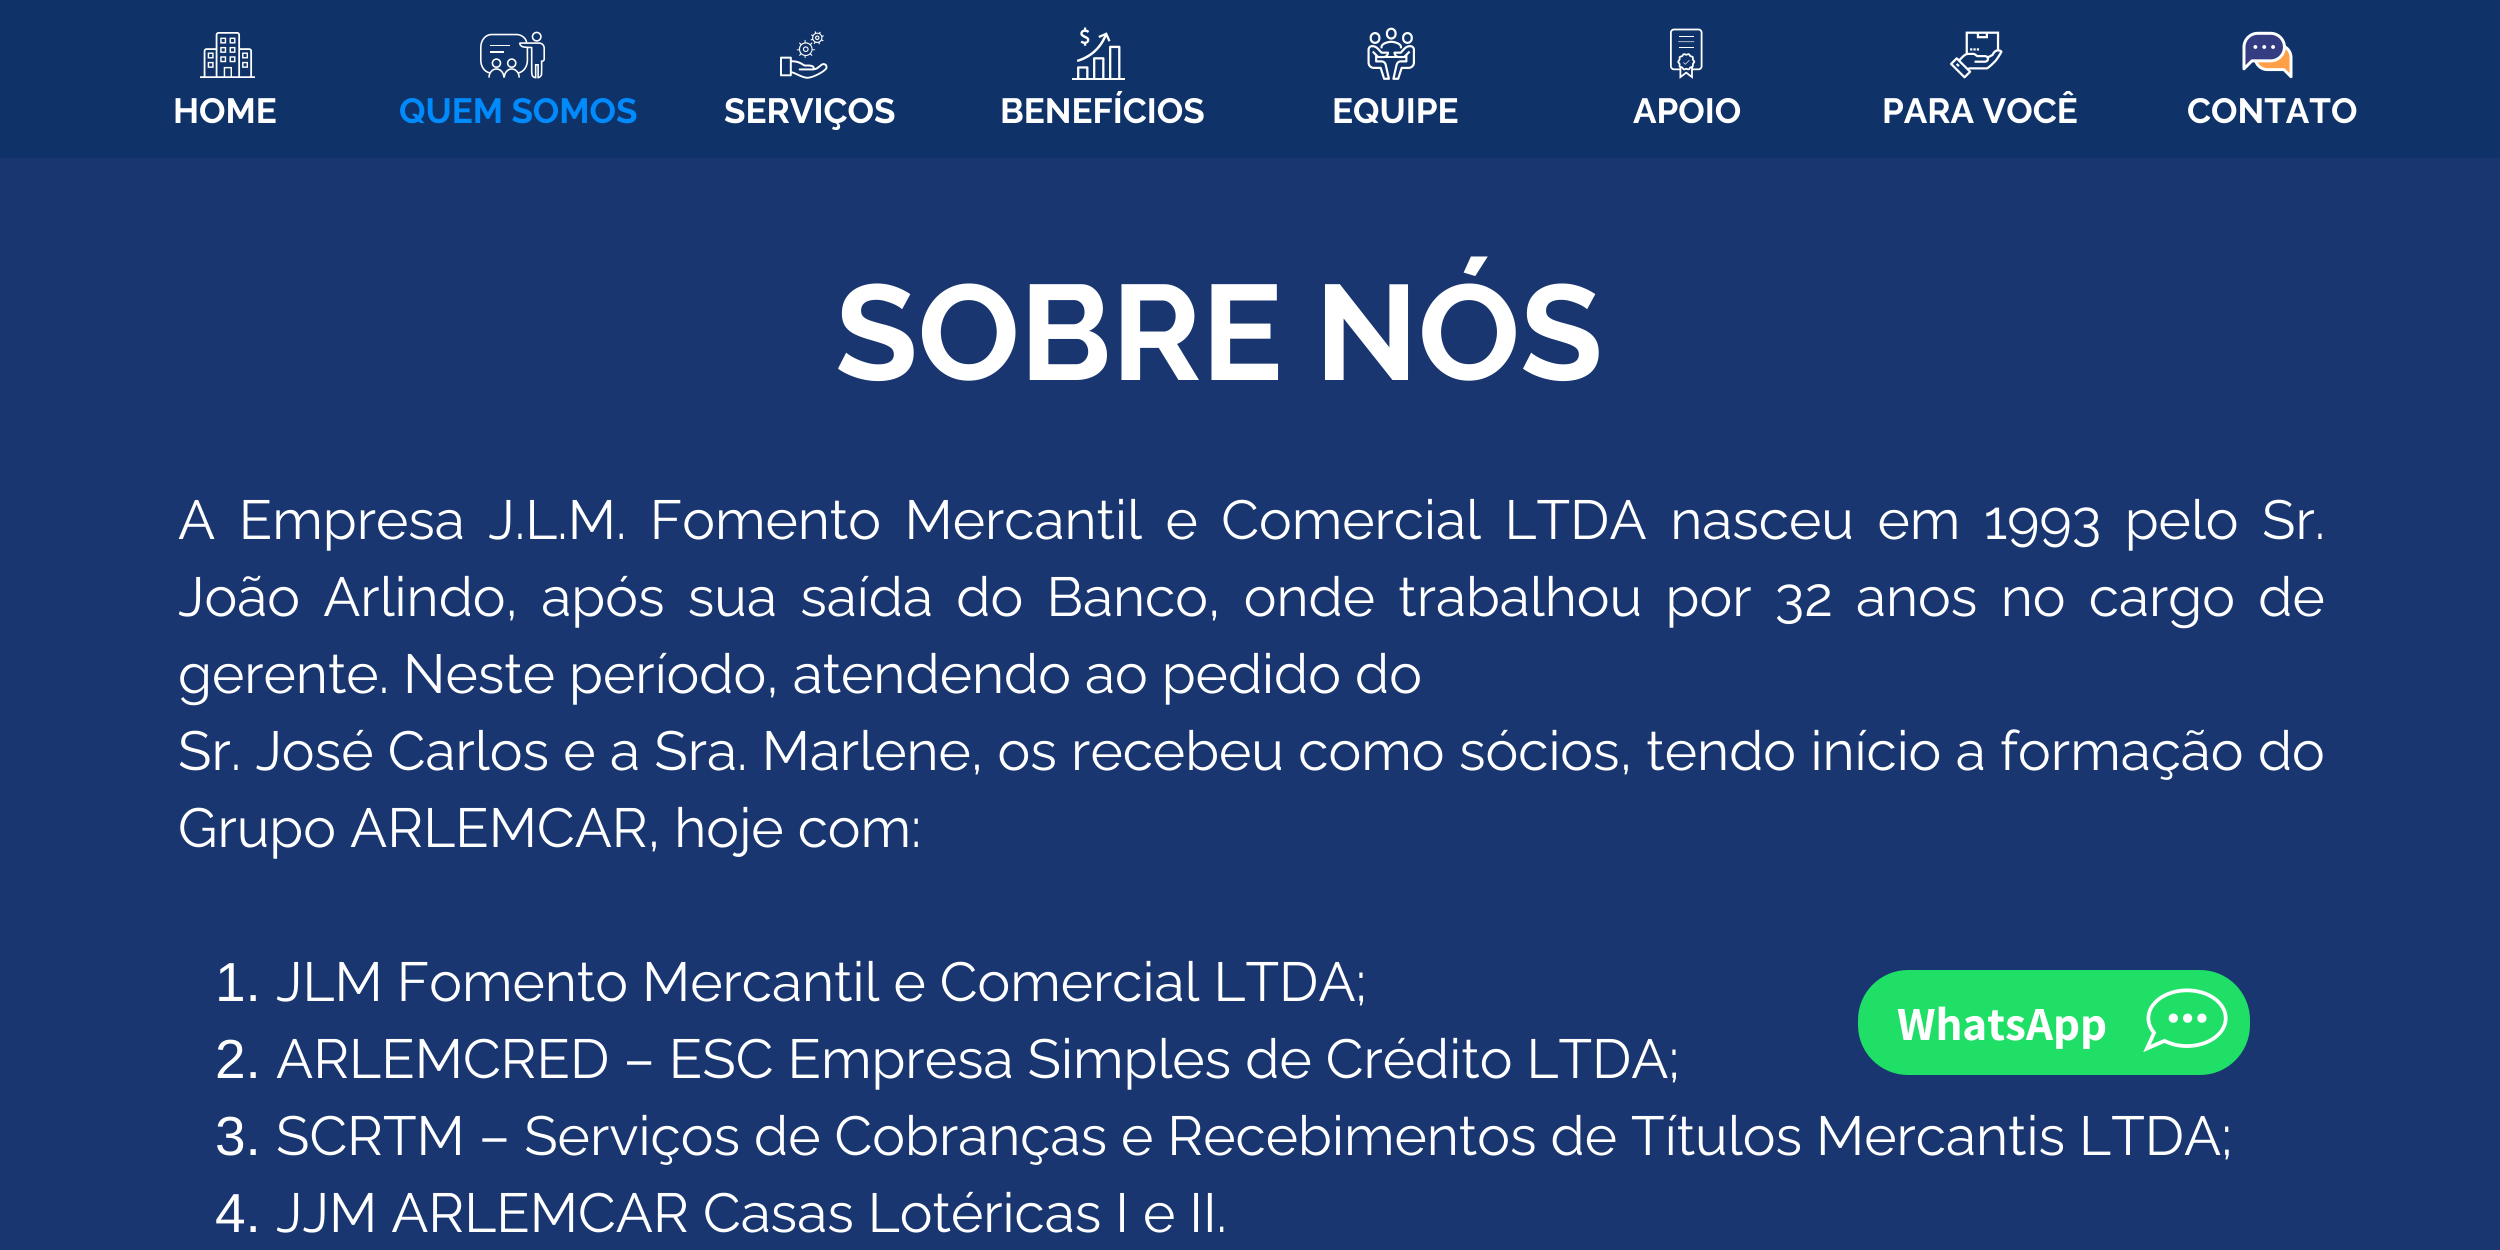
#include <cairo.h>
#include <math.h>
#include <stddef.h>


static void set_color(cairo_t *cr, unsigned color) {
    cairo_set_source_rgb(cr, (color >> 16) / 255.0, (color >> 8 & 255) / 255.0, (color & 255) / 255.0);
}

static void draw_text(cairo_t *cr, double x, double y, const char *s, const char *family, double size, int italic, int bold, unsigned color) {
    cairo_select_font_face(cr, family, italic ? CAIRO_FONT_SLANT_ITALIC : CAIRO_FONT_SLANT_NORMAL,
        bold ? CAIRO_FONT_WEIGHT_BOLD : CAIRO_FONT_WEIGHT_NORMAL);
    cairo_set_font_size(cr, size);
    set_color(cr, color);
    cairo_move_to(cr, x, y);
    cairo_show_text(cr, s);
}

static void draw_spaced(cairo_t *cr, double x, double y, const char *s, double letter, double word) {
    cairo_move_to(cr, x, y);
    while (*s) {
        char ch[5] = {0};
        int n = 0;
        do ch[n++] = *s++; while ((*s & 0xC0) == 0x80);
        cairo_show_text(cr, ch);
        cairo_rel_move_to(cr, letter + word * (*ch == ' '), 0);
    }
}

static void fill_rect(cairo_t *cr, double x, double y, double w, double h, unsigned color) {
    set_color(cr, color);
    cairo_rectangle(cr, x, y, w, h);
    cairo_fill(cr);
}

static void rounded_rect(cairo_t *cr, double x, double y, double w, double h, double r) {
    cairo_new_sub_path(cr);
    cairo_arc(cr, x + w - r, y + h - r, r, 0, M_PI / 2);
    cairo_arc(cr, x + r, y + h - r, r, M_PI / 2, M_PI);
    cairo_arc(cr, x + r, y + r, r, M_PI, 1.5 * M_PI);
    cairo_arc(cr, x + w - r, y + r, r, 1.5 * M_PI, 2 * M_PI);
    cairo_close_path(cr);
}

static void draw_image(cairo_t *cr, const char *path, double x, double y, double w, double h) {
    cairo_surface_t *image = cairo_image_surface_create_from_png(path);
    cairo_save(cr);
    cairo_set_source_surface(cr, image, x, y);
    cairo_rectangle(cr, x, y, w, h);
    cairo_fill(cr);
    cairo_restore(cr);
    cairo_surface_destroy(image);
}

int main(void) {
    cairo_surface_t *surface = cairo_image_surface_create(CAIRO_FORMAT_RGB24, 2500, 1250);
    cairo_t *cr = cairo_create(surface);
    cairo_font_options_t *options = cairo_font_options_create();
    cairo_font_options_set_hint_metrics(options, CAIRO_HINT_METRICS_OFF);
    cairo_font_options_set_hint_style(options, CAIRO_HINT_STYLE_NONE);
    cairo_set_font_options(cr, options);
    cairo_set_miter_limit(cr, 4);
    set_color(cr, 0x193670);
    cairo_paint(cr);
    fill_rect(cr, 0, 0, 2500, 158, 0x0F3368);
    draw_image(cr, "assets/img1.png", 200, 32, 55, 46);
    draw_image(cr, "assets/img2.png", 480, 31, 65, 48);
    draw_image(cr, "assets/img3.png", 780, 31, 48, 48);
    draw_image(cr, "assets/img4.png", 1072, 27, 53, 53);
    draw_image(cr, "assets/img5.png", 1367, 27, 48, 53);
    draw_image(cr, "assets/img6.png", 1670, 28, 33, 51);
    draw_image(cr, "assets/img7.png", 1950, 31, 53, 48);
    draw_image(cr, "assets/img8.png", 2242, 31, 51, 48);
    draw_text(cr, 173, 123, "HOME", "Raleway", 35, 0, 1, 0xFFFFFF);
    draw_text(cr, 399, 123, "QUEM SOMOS", "Raleway", 35, 0, 1, 0x008AFC);
    draw_text(cr, 724, 123, "SERVIÇOS", "Raleway", 35, 0, 1, 0xFFFFFF);
    draw_text(cr, 1000, 123, "BENEFÍCIOS", "Raleway", 35, 0, 1, 0xFFFFFF);
    draw_text(cr, 1332, 123, "EQUIPE", "Raleway", 35, 0, 1, 0xFFFFFF);
    draw_text(cr, 1633, 123, "APOIO", "Raleway", 35, 0, 1, 0xFFFFFF);
    draw_text(cr, 1882, 123, "PARA VOCÊ", "Raleway", 35, 0, 1, 0xFFFFFF);
    draw_text(cr, 2187, 123, "CONTATO", "Raleway", 35, 0, 1, 0xFFFFFF);
    draw_text(cr, 835, 380, "SOBRE NÓS", "Raleway", 135, 0, 1, 0xFFFFFF);
    cairo_select_font_face(cr, "Raleway", CAIRO_FONT_SLANT_NORMAL, CAIRO_FONT_WEIGHT_NORMAL);
    cairo_set_font_size(cr, 55);
    draw_spaced(cr, 178, 539, "A Empresa J.L.M. Fomento Mercantil e Comercial LTDA nasceu em 1993 pelo Sr.", 0, 9.5);
    draw_spaced(cr, 178, 616, "João Arlindo, após sua saída do Banco, onde trabalhou por 32 anos no cargo de", 0, 9.25);
    draw_text(cr, 178, 693, "gerente. Neste período, atendendo ao pedido do", "Raleway", 55, 0, 0, 0xFFFFFF);
    draw_spaced(cr, 178, 770, "Sr. José Carlos e a Sra. Marlene, os recebeu como sócios, tendo início a formação do", 0, 0.3);
    draw_text(cr, 178, 847, "Grupo ARLEMCAR, hoje com:", "Raleway", 55, 0, 0, 0xFFFFFF);
    draw_text(cr, 215, 1001, "1.", "Liberation Sans", 55, 0, 0, 0xFFFFFF);
    draw_text(cr, 276, 1001, "JLM Fomento Mercantil e Comercial LTDA;", "Raleway", 55, 0, 0, 0xFFFFFF);
    draw_text(cr, 215, 1078, "2.", "Liberation Sans", 55, 0, 0, 0xFFFFFF);
    draw_text(cr, 276, 1078, "ARLEMCRED – ESC Empresa Simples de Crédito LTDA;", "Raleway", 55, 0, 0, 0xFFFFFF);
    draw_text(cr, 215, 1155, "3.", "Liberation Sans", 55, 0, 0, 0xFFFFFF);
    draw_text(cr, 276, 1155, "SCRTM – Serviços de Cobranças e Recebimentos de Títulos Mercantis LTDA;", "Raleway", 55, 0, 0, 0xFFFFFF);
    draw_text(cr, 215, 1232, "4.", "Liberation Sans", 55, 0, 0, 0xFFFFFF);
    draw_text(cr, 276, 1232, "JJM ARLEMCAR Casas Lotéricas I e II.", "Raleway", 55, 0, 0, 0xFFFFFF);
    set_color(cr, 0x1FDF67);
    rounded_rect(cr, 1858, 970, 392, 105, 50);
    cairo_fill(cr);
    draw_text(cr, 1897, 1040, "WhatsApp", "Assistant", 47.5, 0, 1, 0xFFFFFF);
    draw_image(cr, "assets/img9.png", 2143, 988, 85, 64);
    cairo_surface_write_to_png(surface, "output.png");
    cairo_font_options_destroy(options);
    cairo_destroy(cr);
    cairo_surface_destroy(surface);
    return 0;
}
